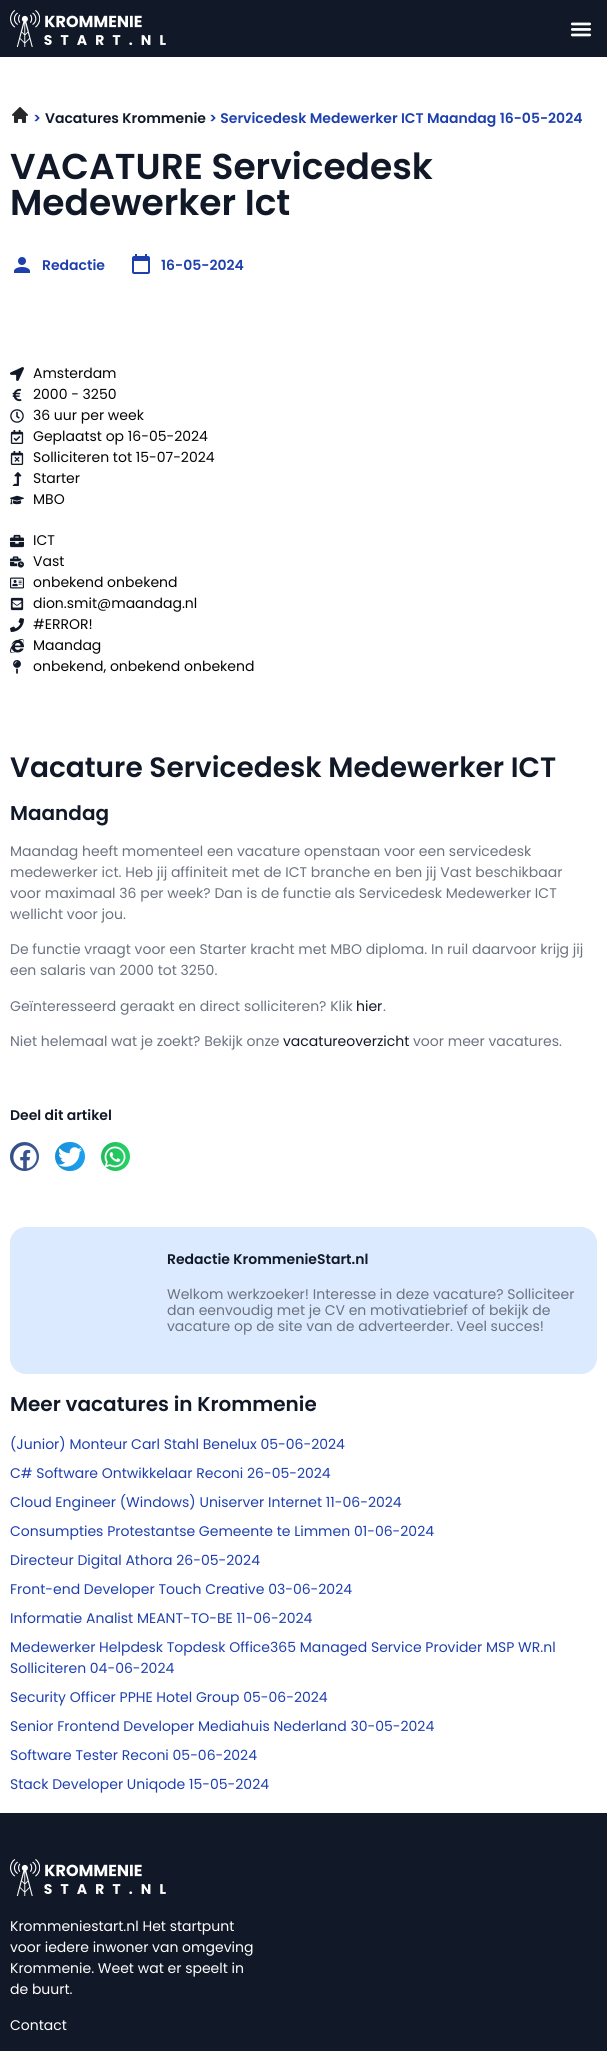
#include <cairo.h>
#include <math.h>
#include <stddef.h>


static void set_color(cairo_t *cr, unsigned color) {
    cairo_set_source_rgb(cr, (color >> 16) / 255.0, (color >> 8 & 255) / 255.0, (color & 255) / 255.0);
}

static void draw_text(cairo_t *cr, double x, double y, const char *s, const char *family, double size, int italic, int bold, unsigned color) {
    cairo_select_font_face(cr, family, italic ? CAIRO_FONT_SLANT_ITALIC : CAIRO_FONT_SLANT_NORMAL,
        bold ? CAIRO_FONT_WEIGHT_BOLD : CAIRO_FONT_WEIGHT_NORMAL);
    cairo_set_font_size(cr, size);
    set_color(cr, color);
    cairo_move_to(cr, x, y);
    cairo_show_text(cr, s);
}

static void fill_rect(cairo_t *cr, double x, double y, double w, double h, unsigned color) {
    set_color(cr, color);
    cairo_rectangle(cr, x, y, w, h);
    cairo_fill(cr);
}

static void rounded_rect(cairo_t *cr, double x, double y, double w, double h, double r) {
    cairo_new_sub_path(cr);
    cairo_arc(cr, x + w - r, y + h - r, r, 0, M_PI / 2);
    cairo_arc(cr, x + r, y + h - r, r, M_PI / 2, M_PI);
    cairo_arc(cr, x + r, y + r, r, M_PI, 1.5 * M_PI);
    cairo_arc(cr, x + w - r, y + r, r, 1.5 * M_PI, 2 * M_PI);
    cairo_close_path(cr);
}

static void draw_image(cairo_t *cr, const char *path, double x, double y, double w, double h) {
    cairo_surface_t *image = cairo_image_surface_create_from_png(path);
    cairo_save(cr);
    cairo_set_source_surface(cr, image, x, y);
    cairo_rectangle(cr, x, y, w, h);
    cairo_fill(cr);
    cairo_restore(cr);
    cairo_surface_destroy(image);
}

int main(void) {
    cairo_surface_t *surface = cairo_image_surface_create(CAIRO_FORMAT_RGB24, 607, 2051);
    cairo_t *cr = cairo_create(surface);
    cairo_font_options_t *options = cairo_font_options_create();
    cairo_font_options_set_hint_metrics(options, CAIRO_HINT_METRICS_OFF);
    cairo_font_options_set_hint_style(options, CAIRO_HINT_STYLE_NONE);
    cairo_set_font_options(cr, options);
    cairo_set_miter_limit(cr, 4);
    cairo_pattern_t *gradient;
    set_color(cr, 0xFFFFFF);
    cairo_paint(cr);
    fill_rect(cr, 0, 0, 607, 57, 0x111827);
    draw_image(cr, "assets/img1.png", 10, 10, 156, 37);
    draw_image(cr, "assets/img2.png", 570, 22, 22, 15);
    draw_image(cr, "assets/img3.png", 12, 107, 16, 16);
    draw_text(cr, 33, 123, ">", "Poppins SemiBold", 14, 0, 0, 0x1E40AF);
    draw_text(cr, 45, 123, "Vacatures Krommenie", "Poppins SemiBold", 14, 0, 0, 0x111827);
    draw_text(cr, 209, 123, "> Servicedesk Medewerker ICT Maandag 16-05-2024", "Poppins SemiBold", 14, 0, 0, 0x1E40AF);
    draw_text(cr, 10, 179, "VACATURE Servicedesk", "Poppins SemiBold", 36, 0, 0, 0x111827);
    draw_text(cr, 10, 215, "Medewerker Ict", "Poppins SemiBold", 36, 0, 0, 0x111827);
    draw_image(cr, "assets/img4.png", 14, 257, 16, 16);
    draw_text(cr, 42, 270, "Redactie", "Poppins SemiBold", 14, 0, 0, 0x1E40AF);
    draw_image(cr, "assets/img5.png", 132, 254, 18, 20);
    draw_text(cr, 161, 270, "16-05-2024", "Poppins SemiBold", 14, 0, 0, 0x1E40AF);
    draw_image(cr, "assets/img6.png", 10, 367, 14, 14);
    draw_text(cr, 33, 378, "Amsterdam", "Poppins", 14, 0, 0, 0x050404);
    draw_image(cr, "assets/img7.png", 12, 388, 10, 14);
    draw_text(cr, 33, 399, "2000 - 3250", "Poppins", 14, 0, 0, 0x050404);
    draw_image(cr, "assets/img8.png", 10, 409, 14, 14);
    draw_text(cr, 33, 420, "36 uur per week", "Poppins", 14, 0, 0, 0x050404);
    draw_image(cr, "assets/img9.png", 10, 430, 14, 14);
    draw_text(cr, 33, 441, "Geplaatst op 16-05-2024", "Poppins", 14, 0, 0, 0x050404);
    draw_image(cr, "assets/img10.png", 10, 451, 14, 14);
    draw_text(cr, 33, 462, "Solliciteren tot 15-07-2024", "Poppins", 14, 0, 0, 0x050404);
    draw_image(cr, "assets/img11.png", 12, 472, 10, 14);
    draw_text(cr, 33, 483, "Starter", "Poppins", 14, 0, 0, 0x050404);
    draw_image(cr, "assets/img12.png", 10, 495, 14, 10);
    draw_text(cr, 33, 504, "MBO", "Poppins", 14, 0, 0, 0x050404);
    draw_image(cr, "assets/img13.png", 10, 534, 14, 14);
    draw_text(cr, 33, 545, "ICT", "Poppins", 14, 0, 0, 0x050404);
    draw_image(cr, "assets/img14.png", 10, 556, 14, 12);
    draw_text(cr, 33, 566, "Vast", "Poppins", 14, 0, 0, 0x050404);
    draw_image(cr, "assets/img15.png", 10, 577, 14, 12);
    draw_text(cr, 33, 587, "onbekend onbekend", "Poppins", 14, 0, 0, 0x050404);
    draw_image(cr, "assets/img16.png", 10, 597, 14, 14);
    draw_text(cr, 33, 608, "dion.smit@maandag.nl", "Poppins", 14, 0, 0, 0x050404);
    draw_image(cr, "assets/img17.png", 10, 618, 14, 14);
    draw_text(cr, 33, 629, "#ERROR!", "Poppins", 14, 0, 0, 0x050404);
    draw_image(cr, "assets/img18.png", 10, 639, 14, 14);
    draw_text(cr, 33, 650, "Maandag", "Poppins", 14, 0, 0, 0x050404);
    draw_image(cr, "assets/img19.png", 13, 660, 8, 14);
    draw_text(cr, 33, 671, "onbekend, onbekend onbekend", "Poppins", 14, 0, 0, 0x050404);
    draw_text(cr, 10, 777, "Vacature Servicedesk Medewerker ICT", "Poppins SemiBold", 28, 0, 0, 0x111827);
    draw_text(cr, 10, 820, "Maandag", "Poppins SemiBold", 20, 0, 0, 0x111827);
    draw_text(cr, 10, 856, "Maandag heeft momenteel een vacature openstaan voor een servicedesk", "Poppins", 14, 0, 0, 0x6B7280);
    draw_text(cr, 10, 877, "medewerker ict. Heb jij affiniteit met de ICT branche en ben jij Vast beschikbaar", "Poppins", 14, 0, 0, 0x6B7280);
    draw_text(cr, 10, 898, "voor maximaal 36 per week? Dan is de functie als Servicedesk Medewerker ICT", "Poppins", 14, 0, 0, 0x6B7280);
    draw_text(cr, 10, 919, "wellicht voor jou.", "Poppins", 14, 0, 0, 0x6B7280);
    draw_text(cr, 10, 954, "De functie vraagt voor een Starter kracht met MBO diploma. In ruil daarvoor krijg jij", "Poppins", 14, 0, 0, 0x6B7280);
    draw_text(cr, 10, 975, "een salaris van 2000 tot 3250.", "Poppins", 14, 0, 0, 0x6B7280);
    draw_text(cr, 10, 1011, "Geïnteresseerd geraakt en direct solliciteren? Klik", "Poppins", 14, 0, 0, 0x6B7280);
    draw_text(cr, 356, 1011, "hier", "Poppins", 14, 0, 0, 0x111827);
    draw_text(cr, 383, 1011, ".", "Poppins", 14, 0, 0, 0x6B7280);
    draw_text(cr, 10, 1046, "Niet helemaal wat je zoekt? Bekijk onze", "Poppins", 14, 0, 0, 0x6B7280);
    draw_text(cr, 283, 1046, "vacatureoverzicht", "Poppins", 14, 0, 0, 0x111827);
    draw_text(cr, 413, 1046, "voor meer vacatures.", "Poppins", 14, 0, 0, 0x6B7280);
    draw_text(cr, 10, 1120, "Deel dit artikel", "Poppins SemiBold", 14, 0, 0, 0x111827);
    set_color(cr, 0x3B5998);
    cairo_new_path(cr);
    cairo_arc(cr, 24.5, 1156.5, 14.5, 0, 2 * M_PI);
    cairo_fill(cr);
    gradient = cairo_pattern_create_linear(10, 1157, 39, 1157);
    cairo_pattern_add_color_stop_rgba(gradient, 0, 0, 0, 0, 0.12);
    cairo_pattern_add_color_stop_rgba(gradient, 1, 0, 0, 0, 0);
    cairo_set_source(cr, gradient);
    cairo_pattern_destroy(gradient);
    cairo_arc(cr, 24.5, 1156.5, 14.5, 0, 2 * M_PI);
    cairo_fill(cr);
    draw_image(cr, "assets/img20.png", 13, 1145, 24, 24);
    set_color(cr, 0x1DA1F2);
    rounded_rect(cr, 55, 1142, 30, 29, 14.5);
    cairo_fill(cr);
    gradient = cairo_pattern_create_linear(55, 1157, 85, 1157);
    cairo_pattern_add_color_stop_rgba(gradient, 0, 0, 0, 0, 0.12);
    cairo_pattern_add_color_stop_rgba(gradient, 1, 0, 0, 0, 0);
    cairo_set_source(cr, gradient);
    cairo_pattern_destroy(gradient);
    rounded_rect(cr, 55, 1142, 30, 29, 14.5);
    cairo_fill(cr);
    draw_image(cr, "assets/img21.png", 58, 1147, 24, 20);
    set_color(cr, 0x25D366);
    cairo_arc(cr, 115.5, 1156.5, 14.5, 0, 2 * M_PI);
    cairo_fill(cr);
    gradient = cairo_pattern_create_linear(101, 1157, 130, 1157);
    cairo_pattern_add_color_stop_rgba(gradient, 0, 0, 0, 0, 0.12);
    cairo_pattern_add_color_stop_rgba(gradient, 1, 0, 0, 0, 0);
    cairo_set_source(cr, gradient);
    cairo_pattern_destroy(gradient);
    cairo_arc(cr, 115.5, 1156.5, 14.5, 0, 2 * M_PI);
    cairo_fill(cr);
    draw_image(cr, "assets/img22.png", 104, 1146, 22, 22);
    set_color(cr, 0xDBEAFE);
    rounded_rect(cr, 10, 1227, 587, 147, 16);
    cairo_fill(cr);
    draw_text(cr, 167, 1264, "Redactie KrommenieStart.nl", "Poppins SemiBold", 14, 0, 0, 0x111827);
    draw_text(cr, 167, 1299, "Welkom werkzoeker! Interesse in deze vacature? Solliciteer", "Poppins", 14, 0, 0, 0x6B7280);
    draw_text(cr, 167, 1315, "dan eenvoudig met je CV en motivatiebrief of bekijk de", "Poppins", 14, 0, 0, 0x6B7280);
    draw_text(cr, 167, 1331, "vacature op de site van de adverteerder. Veel succes!", "Poppins", 14, 0, 0, 0x6B7280);
    draw_text(cr, 10, 1411, "Meer vacatures in Krommenie", "Poppins SemiBold", 20, 0, 0, 0x111827);
    draw_text(cr, 10, 1449, "(Junior) Monteur Carl Stahl Benelux 05-06-2024", "Poppins", 14, 0, 0, 0x1E40AF);
    draw_text(cr, 10, 1478, "C# Software Ontwikkelaar Reconi 26-05-2024", "Poppins", 14, 0, 0, 0x1E40AF);
    draw_text(cr, 10, 1507, "Cloud Engineer (Windows) Uniserver Internet 11-06-2024", "Poppins", 14, 0, 0, 0x1E40AF);
    draw_text(cr, 10, 1536, "Consumpties Protestantse Gemeente te Limmen 01-06-2024", "Poppins", 14, 0, 0, 0x1E40AF);
    draw_text(cr, 10, 1565, "Directeur Digital Athora 26-05-2024", "Poppins", 14, 0, 0, 0x1E40AF);
    draw_text(cr, 10, 1594, "Front-end Developer Touch Creative 03-06-2024", "Poppins", 14, 0, 0, 0x1E40AF);
    draw_text(cr, 10, 1623, "Informatie Analist MEANT-TO-BE 11-06-2024", "Poppins", 14, 0, 0, 0x1E40AF);
    draw_text(cr, 10, 1652, "Medewerker Helpdesk Topdesk Office365 Managed Service Provider MSP WR.nl", "Poppins", 14, 0, 0, 0x1E40AF);
    draw_text(cr, 10, 1673, "Solliciteren 04-06-2024", "Poppins", 14, 0, 0, 0x1E40AF);
    draw_text(cr, 10, 1702, "Security Officer PPHE Hotel Group 05-06-2024", "Poppins", 14, 0, 0, 0x1E40AF);
    draw_text(cr, 10, 1731, "Senior Frontend Developer Mediahuis Nederland 30-05-2024", "Poppins", 14, 0, 0, 0x1E40AF);
    draw_text(cr, 10, 1760, "Software Tester Reconi 05-06-2024", "Poppins", 14, 0, 0, 0x1E40AF);
    draw_text(cr, 10, 1789, "Stack Developer Uniqode 15-05-2024", "Poppins", 14, 0, 0, 0x1E40AF);
    fill_rect(cr, 0, 1813, 607, 238, 0x111827);
    draw_image(cr, "assets/img1.png", 10, 1859, 156, 37);
    draw_text(cr, 10, 1931, "Krommeniestart.nl Het startpunt", "Poppins", 14, 0, 0, 0xFFFFFF);
    draw_text(cr, 10, 1952, "voor iedere inwoner van omgeving", "Poppins", 14, 0, 0, 0xFFFFFF);
    draw_text(cr, 10, 1973, "Krommenie. Weet wat er speelt in", "Poppins", 14, 0, 0, 0xFFFFFF);
    draw_text(cr, 10, 1994, "de buurt.", "Poppins", 14, 0, 0, 0xFFFFFF);
    draw_text(cr, 10, 2030, "Contact", "Poppins", 14, 0, 0, 0xFFFFFF);
    cairo_surface_write_to_png(surface, "output.png");
    cairo_font_options_destroy(options);
    cairo_destroy(cr);
    cairo_surface_destroy(surface);
    return 0;
}
